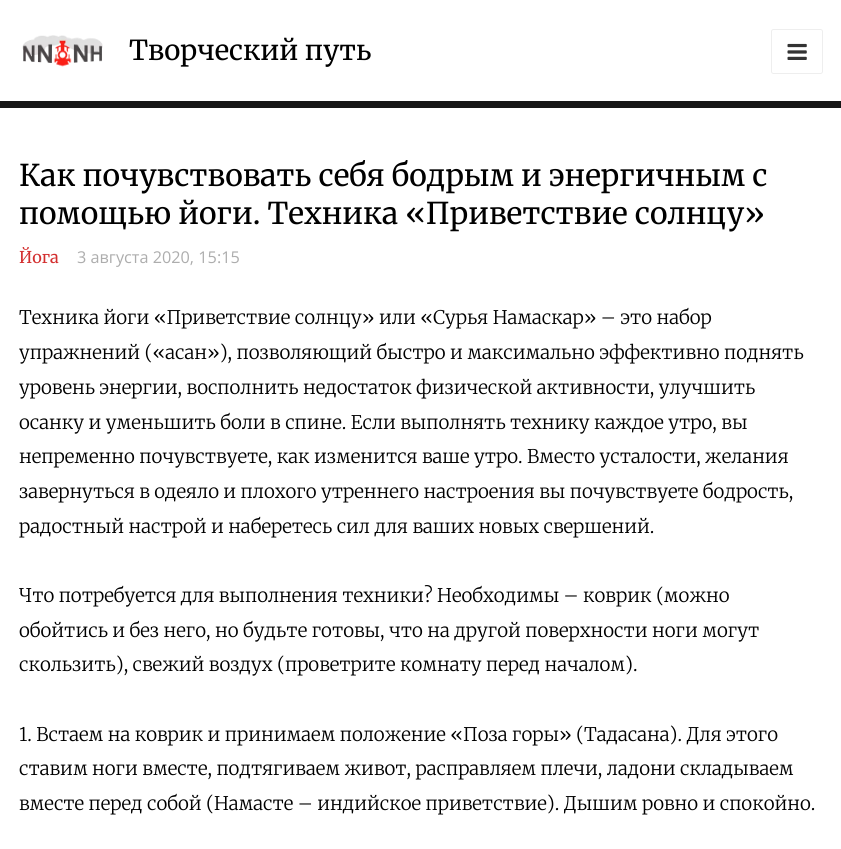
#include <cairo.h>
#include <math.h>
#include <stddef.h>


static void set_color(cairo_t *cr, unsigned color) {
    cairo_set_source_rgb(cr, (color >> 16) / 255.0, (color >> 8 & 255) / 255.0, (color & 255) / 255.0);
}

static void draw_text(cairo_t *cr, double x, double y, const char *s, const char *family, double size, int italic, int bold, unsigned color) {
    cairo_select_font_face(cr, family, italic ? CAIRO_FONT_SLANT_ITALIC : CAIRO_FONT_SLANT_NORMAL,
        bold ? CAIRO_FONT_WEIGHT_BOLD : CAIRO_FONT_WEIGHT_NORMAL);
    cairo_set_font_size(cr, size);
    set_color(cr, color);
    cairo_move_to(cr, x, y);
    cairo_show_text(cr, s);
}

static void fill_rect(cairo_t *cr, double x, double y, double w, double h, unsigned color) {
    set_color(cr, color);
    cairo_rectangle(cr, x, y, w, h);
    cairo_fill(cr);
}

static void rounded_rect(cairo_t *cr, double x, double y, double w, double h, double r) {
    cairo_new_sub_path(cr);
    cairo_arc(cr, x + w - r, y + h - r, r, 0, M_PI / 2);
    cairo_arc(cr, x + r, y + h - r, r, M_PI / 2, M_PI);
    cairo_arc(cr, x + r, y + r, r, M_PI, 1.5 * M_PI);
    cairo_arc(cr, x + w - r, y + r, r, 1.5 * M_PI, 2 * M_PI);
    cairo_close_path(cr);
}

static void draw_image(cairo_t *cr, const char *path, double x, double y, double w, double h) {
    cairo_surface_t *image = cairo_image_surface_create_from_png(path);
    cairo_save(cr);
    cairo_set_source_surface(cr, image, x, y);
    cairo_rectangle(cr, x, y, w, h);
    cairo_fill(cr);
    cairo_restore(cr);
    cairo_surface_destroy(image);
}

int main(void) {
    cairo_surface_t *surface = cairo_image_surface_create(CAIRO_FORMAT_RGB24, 841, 849);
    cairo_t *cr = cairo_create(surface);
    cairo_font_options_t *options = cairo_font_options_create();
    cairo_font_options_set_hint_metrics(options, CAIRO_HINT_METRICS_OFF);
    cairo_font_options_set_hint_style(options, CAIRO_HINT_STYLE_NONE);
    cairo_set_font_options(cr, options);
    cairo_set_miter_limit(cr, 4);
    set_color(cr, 0xFFFFFF);
    cairo_paint(cr);
    fill_rect(cr, 0, 101, 841, 7, 0x161616);
    draw_image(cr, "assets/img1.png", 22, 35, 81, 32);
    draw_text(cr, 129, 60, "Творческий путь", "Merriweather", 27.5, 0, 0, 0x000000);
    rounded_rect(cr, 771.5, 29.5, 51, 44, 2);
    set_color(cr, 0xEEEEEE);
    cairo_set_line_width(cr, 1);
    cairo_stroke(cr);
    draw_image(cr, "assets/img2.png", 787, 43, 20, 17);
    draw_text(cr, 19, 186, "Как почувствовать себя бодрым и энергичным с", "Merriweather", 30, 0, 0, 0x000000);
    draw_text(cr, 19, 224, "помощью йоги. Техника «Приветствие солнцу»", "Merriweather", 30, 0, 0, 0x000000);
    draw_text(cr, 19, 263, "Йога", "Merriweather", 16.25, 0, 0, 0xD32F2F);
    draw_text(cr, 77, 263, "3 августа 2020, 15:15", "Open Sans", 16.25, 0, 0, 0xADADAD);
    draw_text(cr, 19, 324, "Техника йоги «Приветствие солнцу» или «Сурья Намаскар» – это набор", "Merriweather Light", 18.75, 0, 0, 0x000000);
    draw_text(cr, 19, 359, "упражнений («асан»), позволяющий быстро и максимально эффективно поднять", "Merriweather Light", 18.75, 0, 0, 0x000000);
    draw_text(cr, 19, 394, "уровень энергии, восполнить недостаток физической активности, улучшить", "Merriweather Light", 18.75, 0, 0, 0x000000);
    draw_text(cr, 19, 429, "осанку и уменьшить боли в спине. Если выполнять технику каждое утро, вы", "Merriweather Light", 18.75, 0, 0, 0x000000);
    draw_text(cr, 19, 463, "непременно почувствуете, как изменится ваше утро. Вместо усталости, желания", "Merriweather Light", 18.75, 0, 0, 0x000000);
    draw_text(cr, 19, 498, "завернуться в одеяло и плохого утреннего настроения вы почувствуете бодрость,", "Merriweather Light", 18.75, 0, 0, 0x000000);
    draw_text(cr, 19, 533, "радостный настрой и наберетесь сил для ваших новых свершений.", "Merriweather Light", 18.75, 0, 0, 0x000000);
    draw_text(cr, 19, 602, "Что потребуется для выполнения техники? Необходимы – коврик (можно", "Merriweather Light", 18.75, 0, 0, 0x000000);
    draw_text(cr, 19, 637, "обойтись и без него, но будьте готовы, что на другой поверхности ноги могут", "Merriweather Light", 18.75, 0, 0, 0x000000);
    draw_text(cr, 19, 671, "скользить), свежий воздух (проветрите комнату перед началом).", "Merriweather Light", 18.75, 0, 0, 0x000000);
    draw_text(cr, 19, 741, "1. Встаем на коврик и принимаем положение «Поза горы» (Тадасана). Для этого", "Merriweather Light", 18.75, 0, 0, 0x000000);
    draw_text(cr, 19, 775, "ставим ноги вместе, подтягиваем живот, расправляем плечи, ладони складываем", "Merriweather Light", 18.75, 0, 0, 0x000000);
    draw_text(cr, 19, 810, "вместе перед собой (Намасте – индийское приветствие). Дышим ровно и спокойно.", "Merriweather Light", 18.75, 0, 0, 0x000000);
    cairo_surface_write_to_png(surface, "output.png");
    cairo_font_options_destroy(options);
    cairo_destroy(cr);
    cairo_surface_destroy(surface);
    return 0;
}
